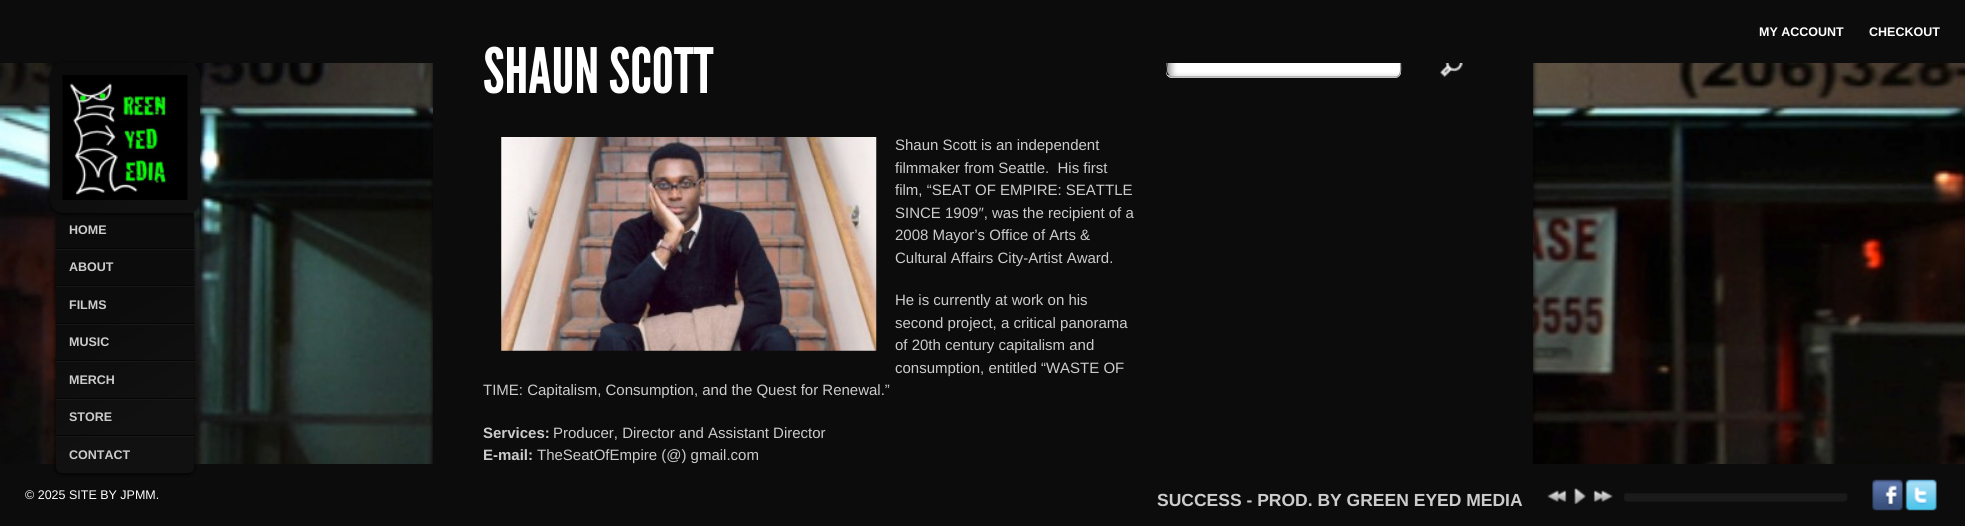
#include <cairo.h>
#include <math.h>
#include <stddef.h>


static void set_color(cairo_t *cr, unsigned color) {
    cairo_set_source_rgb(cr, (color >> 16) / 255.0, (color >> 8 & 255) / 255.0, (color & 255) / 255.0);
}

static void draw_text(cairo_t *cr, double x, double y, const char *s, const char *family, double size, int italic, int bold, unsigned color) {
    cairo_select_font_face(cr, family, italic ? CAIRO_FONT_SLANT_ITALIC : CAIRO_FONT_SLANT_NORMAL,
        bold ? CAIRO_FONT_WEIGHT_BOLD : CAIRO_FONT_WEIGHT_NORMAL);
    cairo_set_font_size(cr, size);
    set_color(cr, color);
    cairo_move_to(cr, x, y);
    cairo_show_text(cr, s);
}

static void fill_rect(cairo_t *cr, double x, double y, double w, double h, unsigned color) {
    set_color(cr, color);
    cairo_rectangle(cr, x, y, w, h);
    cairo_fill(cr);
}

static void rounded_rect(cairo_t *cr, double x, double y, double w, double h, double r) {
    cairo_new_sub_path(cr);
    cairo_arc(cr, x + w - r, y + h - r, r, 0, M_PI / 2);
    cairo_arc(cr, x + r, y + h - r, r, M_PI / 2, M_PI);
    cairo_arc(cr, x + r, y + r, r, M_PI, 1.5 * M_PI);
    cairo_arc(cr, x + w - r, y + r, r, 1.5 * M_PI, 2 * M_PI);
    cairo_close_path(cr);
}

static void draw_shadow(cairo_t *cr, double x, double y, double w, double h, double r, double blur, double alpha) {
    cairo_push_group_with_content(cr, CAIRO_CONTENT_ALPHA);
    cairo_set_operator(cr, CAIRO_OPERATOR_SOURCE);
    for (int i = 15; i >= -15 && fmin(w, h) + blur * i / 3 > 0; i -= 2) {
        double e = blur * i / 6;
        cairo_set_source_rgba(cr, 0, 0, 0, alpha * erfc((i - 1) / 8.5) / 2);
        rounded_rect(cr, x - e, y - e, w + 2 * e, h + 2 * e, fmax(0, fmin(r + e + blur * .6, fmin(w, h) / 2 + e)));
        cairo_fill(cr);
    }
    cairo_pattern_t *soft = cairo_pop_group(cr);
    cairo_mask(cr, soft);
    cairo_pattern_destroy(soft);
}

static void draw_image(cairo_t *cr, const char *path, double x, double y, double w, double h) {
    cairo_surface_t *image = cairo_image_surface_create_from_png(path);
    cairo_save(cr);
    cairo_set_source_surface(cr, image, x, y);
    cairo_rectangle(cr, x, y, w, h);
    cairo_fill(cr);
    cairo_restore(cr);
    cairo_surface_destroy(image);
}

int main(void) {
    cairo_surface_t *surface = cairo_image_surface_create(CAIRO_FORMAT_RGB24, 1965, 526);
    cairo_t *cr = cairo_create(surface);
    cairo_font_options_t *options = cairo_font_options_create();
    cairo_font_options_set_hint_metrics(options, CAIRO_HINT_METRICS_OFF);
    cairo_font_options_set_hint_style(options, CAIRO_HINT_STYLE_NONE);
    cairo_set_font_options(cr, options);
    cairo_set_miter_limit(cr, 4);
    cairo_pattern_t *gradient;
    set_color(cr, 0xFFFFFF);
    cairo_paint(cr);
    draw_image(cr, "assets/img5.png", 0, 63, 1965, 401);
    set_color(cr, 0x000000);
    draw_shadow(cr, 433, -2, 1100, 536, 0, 2.5, 1);
    fill_rect(cr, 433, 63, 1100, 401, 0x0C0C0C);
    set_color(cr, 0xFFFFFF);
    rounded_rect(cr, 1166, 50, 235, 28, 6);
    cairo_fill(cr);
    draw_image(cr, "assets/img3.png", 1167, 63, 235, 14);
    cairo_new_path(cr);
    cairo_move_to(cr, 1399, 52.5);
    cairo_curve_to(cr, 1402, 55, 1400.5, 60.5, 1400.5, 64);
    cairo_curve_to(cr, 1400.5, 68, 1402, 77, 1395, 77);
    cairo_line_to(cr, 1172.5, 77);
    cairo_curve_to(cr, 1171, 77, 1169.5, 76.5, 1168.5, 75);
    set_color(cr, 0x999999);
    cairo_set_line_width(cr, 1.2);
    cairo_stroke(cr);
    cairo_new_path(cr);
    cairo_move_to(cr, 1168.5, 75);
    cairo_curve_to(cr, 1165.5, 72.5, 1167, 67, 1167, 64);
    cairo_curve_to(cr, 1167, 59.5, 1165.5, 50.5, 1172.5, 50.5);
    cairo_line_to(cr, 1395, 50.5);
    cairo_curve_to(cr, 1396.5, 50.5, 1398, 51, 1399, 52.5);
    set_color(cr, 0x050505);
    cairo_stroke(cr);
    fill_rect(cr, 0, 0, 1965, 63, 0x0C0C0C);
    draw_text(cr, 1759, 36, "MY ACCOUNT", "Liberation Sans", 12.5, 0, 1, 0xFFFFFF);
    draw_text(cr, 1869, 36, "CHECKOUT", "Liberation Sans", 12.5, 0, 1, 0xFFFFFF);
    fill_rect(cr, 0, 464, 1965, 62, 0x0C0C0C);
    set_color(cr, 0x000000);
    draw_shadow(cr, 56, 214, 138, 260, 6, 2.5, 1);
    gradient = cairo_pattern_create_linear(194, 473, 56, 213);
    cairo_pattern_add_color_stop_rgba(gradient, 0.23, 0.067, 0.067, 0.067, 1);
    cairo_pattern_add_color_stop_rgba(gradient, 0.62, 0.047, 0.047, 0.047, 1);
    cairo_set_source(cr, gradient);
    cairo_pattern_destroy(gradient);
    cairo_new_path(cr);
    cairo_move_to(cr, 56, 213);
    cairo_line_to(cr, 194, 213);
    cairo_line_to(cr, 194, 467);
    cairo_curve_to(cr, 194, 470.5, 191.5, 473, 188, 473);
    cairo_line_to(cr, 62, 473);
    cairo_curve_to(cr, 58.5, 473, 56, 470.5, 56, 467);
    cairo_close_path(cr);
    cairo_fill(cr);
    set_color(cr, 0x000000);
    draw_shadow(cr, 50, 64, 150, 150, 13, 2.5, 1);
    gradient = cairo_pattern_create_linear(200, 213, 50, 63);
    cairo_pattern_add_color_stop_rgba(gradient, 0.23, 0.067, 0.067, 0.067, 1);
    cairo_pattern_add_color_stop_rgba(gradient, 0.62, 0.047, 0.047, 0.047, 1);
    cairo_set_source(cr, gradient);
    cairo_pattern_destroy(gradient);
    rounded_rect(cr, 50, 63, 150, 150, 13);
    cairo_fill(cr);
    draw_image(cr, "assets/img1.png", 62, 75, 126, 125);
    fill_rect(cr, 56, 248, 138, 1, 0x050505);
    draw_text(cr, 69, 234, "HOME", "Liberation Sans", 12.5, 0, 1, 0xCCCCCC);
    fill_rect(cr, 56, 249, 138, 1, 0x181818);
    fill_rect(cr, 56, 285, 138, 1, 0x050505);
    draw_text(cr, 69, 271, "ABOUT", "Liberation Sans", 12.5, 0, 1, 0xCCCCCC);
    fill_rect(cr, 56, 286, 138, 1, 0x181818);
    fill_rect(cr, 56, 323, 138, 1, 0x050505);
    draw_text(cr, 69, 309, "FILMS", "Liberation Sans", 12.5, 0, 1, 0xCCCCCC);
    fill_rect(cr, 56, 324, 138, 1, 0x181818);
    fill_rect(cr, 56, 360, 138, 1, 0x050505);
    draw_text(cr, 69, 346, "MUSIC", "Liberation Sans", 12.5, 0, 1, 0xCCCCCC);
    fill_rect(cr, 56, 361, 138, 1, 0x181818);
    fill_rect(cr, 56, 398, 138, 1, 0x050505);
    draw_text(cr, 69, 384, "MERCH", "Liberation Sans", 12.5, 0, 1, 0xCCCCCC);
    fill_rect(cr, 56, 399, 138, 1, 0x181818);
    fill_rect(cr, 56, 435, 138, 1, 0x050505);
    draw_text(cr, 69, 421, "STORE", "Liberation Sans", 12.5, 0, 1, 0xCCCCCC);
    fill_rect(cr, 56, 436, 138, 1, 0x181818);
    draw_text(cr, 69, 459, "CONTACT", "Liberation Sans", 12.5, 0, 1, 0xCCCCCC);
    draw_text(cr, 483, 93, "SHAUN SCOTT", "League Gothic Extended", 62.5, 0, 0, 0xFFFFFF);
    draw_image(cr, "assets/img2.png", 501, 137, 376, 214);
    draw_text(cr, 895, 150, "Shaun Scott is an independent", "Liberation Sans", 15, 0, 0, 0xCCCCCC);
    draw_text(cr, 895, 173, "filmmaker from Seattle.  His first", "Liberation Sans", 15, 0, 0, 0xCCCCCC);
    draw_text(cr, 895, 195, "film, “SEAT OF EMPIRE: SEATTLE", "Liberation Sans", 15, 0, 0, 0xCCCCCC);
    draw_text(cr, 895, 218, "SINCE 1909″, was the recipient of a", "Liberation Sans", 15, 0, 0, 0xCCCCCC);
    draw_text(cr, 895, 240, "2008 Mayor’s Office of Arts &", "Liberation Sans", 15, 0, 0, 0xCCCCCC);
    draw_text(cr, 895, 263, "Cultural Affairs City-Artist Award.", "Liberation Sans", 15, 0, 0, 0xCCCCCC);
    draw_text(cr, 895, 305, "He is currently at work on his", "Liberation Sans", 15, 0, 0, 0xCCCCCC);
    draw_text(cr, 895, 328, "second project, a critical panorama", "Liberation Sans", 15, 0, 0, 0xCCCCCC);
    draw_text(cr, 895, 350, "of 20th century capitalism and", "Liberation Sans", 15, 0, 0, 0xCCCCCC);
    draw_text(cr, 895, 373, "consumption, entitled “WASTE OF", "Liberation Sans", 15, 0, 0, 0xCCCCCC);
    draw_text(cr, 483, 395, "TIME: Capitalism, Consumption, and the Quest for Renewal.”", "Liberation Sans", 15, 0, 0, 0xCCCCCC);
    draw_text(cr, 483, 438, "Services:", "Liberation Sans", 15, 0, 1, 0xCCCCCC);
    draw_text(cr, 553, 438, "Producer, Director and Assistant Director", "Liberation Sans", 15, 0, 0, 0xCCCCCC);
    draw_text(cr, 483, 460, "E-mail:", "Liberation Sans", 15, 0, 1, 0xCCCCCC);
    draw_text(cr, 537, 460, "TheSeatOfEmpire (@) gmail.com", "Liberation Sans", 15, 0, 0, 0xCCCCCC);
    draw_image(cr, "assets/img4.png", 1439, 63, 24, 15);
    draw_text(cr, 25, 499, "© 2025 SITE BY JPMM.", "Liberation Sans", 12.5, 0, 0, 0xFFFFFF);
    draw_text(cr, 1157, 506, "SUCCESS - PROD. BY GREEN EYED MEDIA", "Liberation Sans", 17.5, 0, 1, 0xCCCCCC);
    draw_image(cr, "assets/img6.png", 1547, 490, 20, 12);
    draw_image(cr, "assets/img7.png", 1574, 488, 12, 16);
    draw_image(cr, "assets/img8.png", 1593, 490, 20, 12);
    draw_image(cr, "assets/img9.png", 1624, 493, 224, 9);
    draw_image(cr, "assets/img10.png", 1872, 479, 31, 32);
    draw_image(cr, "assets/img11.png", 1905, 479, 32, 32);
    cairo_surface_write_to_png(surface, "output.png");
    cairo_font_options_destroy(options);
    cairo_destroy(cr);
    cairo_surface_destroy(surface);
    return 0;
}
